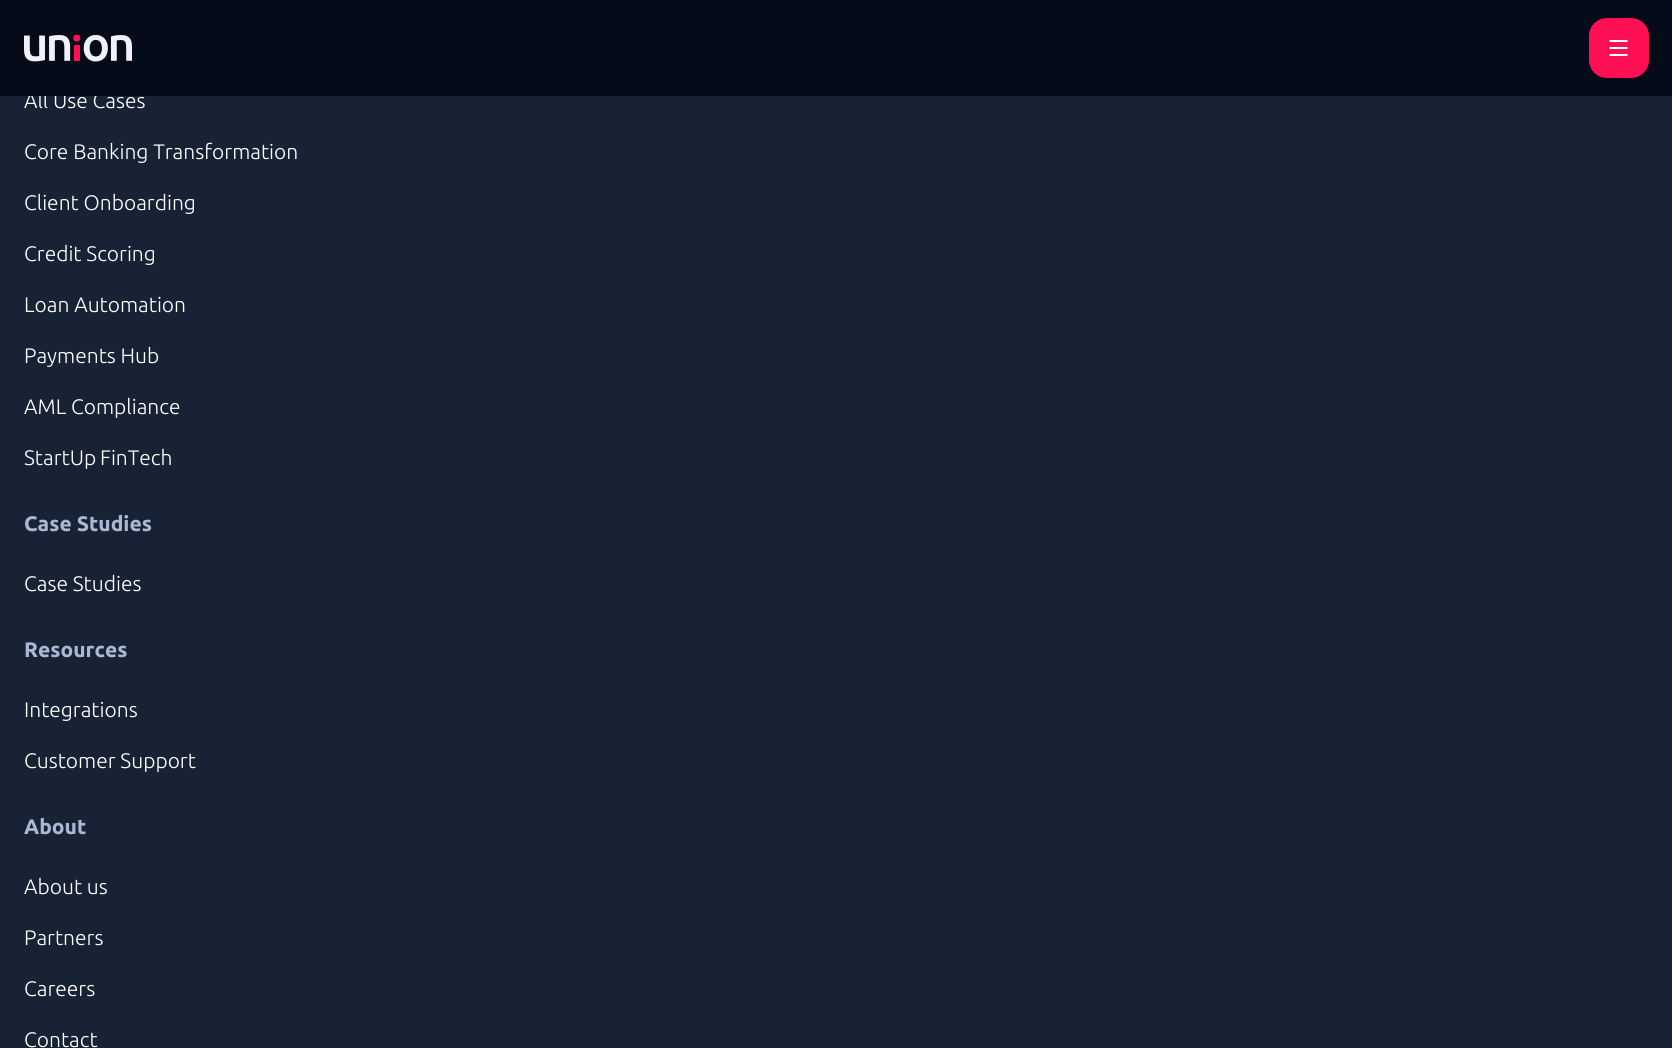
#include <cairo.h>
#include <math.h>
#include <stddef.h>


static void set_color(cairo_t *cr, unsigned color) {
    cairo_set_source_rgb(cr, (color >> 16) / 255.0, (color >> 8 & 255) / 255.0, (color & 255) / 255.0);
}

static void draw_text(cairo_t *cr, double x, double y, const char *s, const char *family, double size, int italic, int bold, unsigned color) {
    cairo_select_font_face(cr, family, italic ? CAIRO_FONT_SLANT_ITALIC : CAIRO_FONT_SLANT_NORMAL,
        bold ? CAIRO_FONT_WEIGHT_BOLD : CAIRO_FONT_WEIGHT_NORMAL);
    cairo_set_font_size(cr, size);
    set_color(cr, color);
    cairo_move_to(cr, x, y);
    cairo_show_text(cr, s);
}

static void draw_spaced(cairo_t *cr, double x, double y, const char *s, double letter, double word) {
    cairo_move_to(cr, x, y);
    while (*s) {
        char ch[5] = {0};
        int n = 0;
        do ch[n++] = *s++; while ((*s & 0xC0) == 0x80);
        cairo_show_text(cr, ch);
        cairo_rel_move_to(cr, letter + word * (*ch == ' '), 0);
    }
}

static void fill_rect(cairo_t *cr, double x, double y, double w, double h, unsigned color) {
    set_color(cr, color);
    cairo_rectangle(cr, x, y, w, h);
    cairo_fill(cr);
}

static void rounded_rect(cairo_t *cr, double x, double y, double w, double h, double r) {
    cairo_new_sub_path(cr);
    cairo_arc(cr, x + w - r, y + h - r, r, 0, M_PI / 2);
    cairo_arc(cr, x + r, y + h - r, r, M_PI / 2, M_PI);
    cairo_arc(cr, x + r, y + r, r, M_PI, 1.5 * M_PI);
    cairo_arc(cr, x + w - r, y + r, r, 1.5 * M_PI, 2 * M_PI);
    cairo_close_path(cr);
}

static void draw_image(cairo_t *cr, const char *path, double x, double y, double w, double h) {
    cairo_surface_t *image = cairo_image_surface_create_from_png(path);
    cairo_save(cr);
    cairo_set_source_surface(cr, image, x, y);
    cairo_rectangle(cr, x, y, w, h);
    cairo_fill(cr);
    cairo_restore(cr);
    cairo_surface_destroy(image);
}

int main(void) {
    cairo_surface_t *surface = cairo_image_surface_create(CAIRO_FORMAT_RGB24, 1672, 1048);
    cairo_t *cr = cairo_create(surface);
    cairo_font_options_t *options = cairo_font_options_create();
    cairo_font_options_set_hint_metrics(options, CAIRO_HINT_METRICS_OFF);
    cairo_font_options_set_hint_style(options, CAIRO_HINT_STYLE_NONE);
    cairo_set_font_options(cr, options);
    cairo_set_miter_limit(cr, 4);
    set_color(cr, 0x182235);
    cairo_paint(cr);
    draw_text(cr, 24, 108, "All Use Cases", "Ubuntu Light", 21, 0, 0, 0xFFFFFF);
    fill_rect(cr, 0, 0, 1672, 96, 0x050B18);
    draw_image(cr, "assets/img1.png", 24, 35, 108, 27);
    set_color(cr, 0xFF0F54);
    rounded_rect(cr, 1589, 18, 60, 60, 18);
    cairo_fill(cr);
    draw_image(cr, "assets/img2.png", 1609, 40, 19, 16);
    draw_text(cr, 24, 159, "Core Banking Transformation", "Ubuntu Light", 21, 0, 0, 0xFFFFFF);
    draw_text(cr, 24, 210, "Client Onboarding", "Ubuntu Light", 21, 0, 0, 0xFFFFFF);
    draw_text(cr, 24, 261, "Credit Scoring", "Ubuntu Light", 21, 0, 0, 0xFFFFFF);
    draw_text(cr, 24, 312, "Loan Automation", "Ubuntu Light", 21, 0, 0, 0xFFFFFF);
    draw_text(cr, 24, 363, "Payments Hub", "Ubuntu Light", 21, 0, 0, 0xFFFFFF);
    draw_text(cr, 24, 414, "AML Compliance", "Ubuntu Light", 21, 0, 0, 0xFFFFFF);
    draw_spaced(cr, 24, 465, "StartUp FinTech", 0, -1);
    draw_text(cr, 24, 531, "Case Studies", "Ubuntu", 21, 0, 1, 0xAAB8D4);
    draw_text(cr, 24, 591, "Case Studies", "Ubuntu Light", 21, 0, 0, 0xFFFFFF);
    draw_text(cr, 24, 657, "Resources", "Ubuntu", 21, 0, 1, 0xAAB8D4);
    draw_text(cr, 24, 717, "Integrations", "Ubuntu Light", 21, 0, 0, 0xFFFFFF);
    draw_text(cr, 24, 768, "Customer Support", "Ubuntu Light", 21, 0, 0, 0xFFFFFF);
    draw_text(cr, 24, 834, "About", "Ubuntu", 21, 0, 1, 0xAAB8D4);
    draw_text(cr, 24, 894, "About us", "Ubuntu Light", 21, 0, 0, 0xFFFFFF);
    draw_text(cr, 24, 945, "Partners", "Ubuntu Light", 21, 0, 0, 0xFFFFFF);
    draw_text(cr, 24, 996, "Careers", "Ubuntu Light", 21, 0, 0, 0xFFFFFF);
    draw_text(cr, 24, 1047, "Contact", "Ubuntu Light", 21, 0, 0, 0xFFFFFF);
    cairo_surface_write_to_png(surface, "output.png");
    cairo_font_options_destroy(options);
    cairo_destroy(cr);
    cairo_surface_destroy(surface);
    return 0;
}
